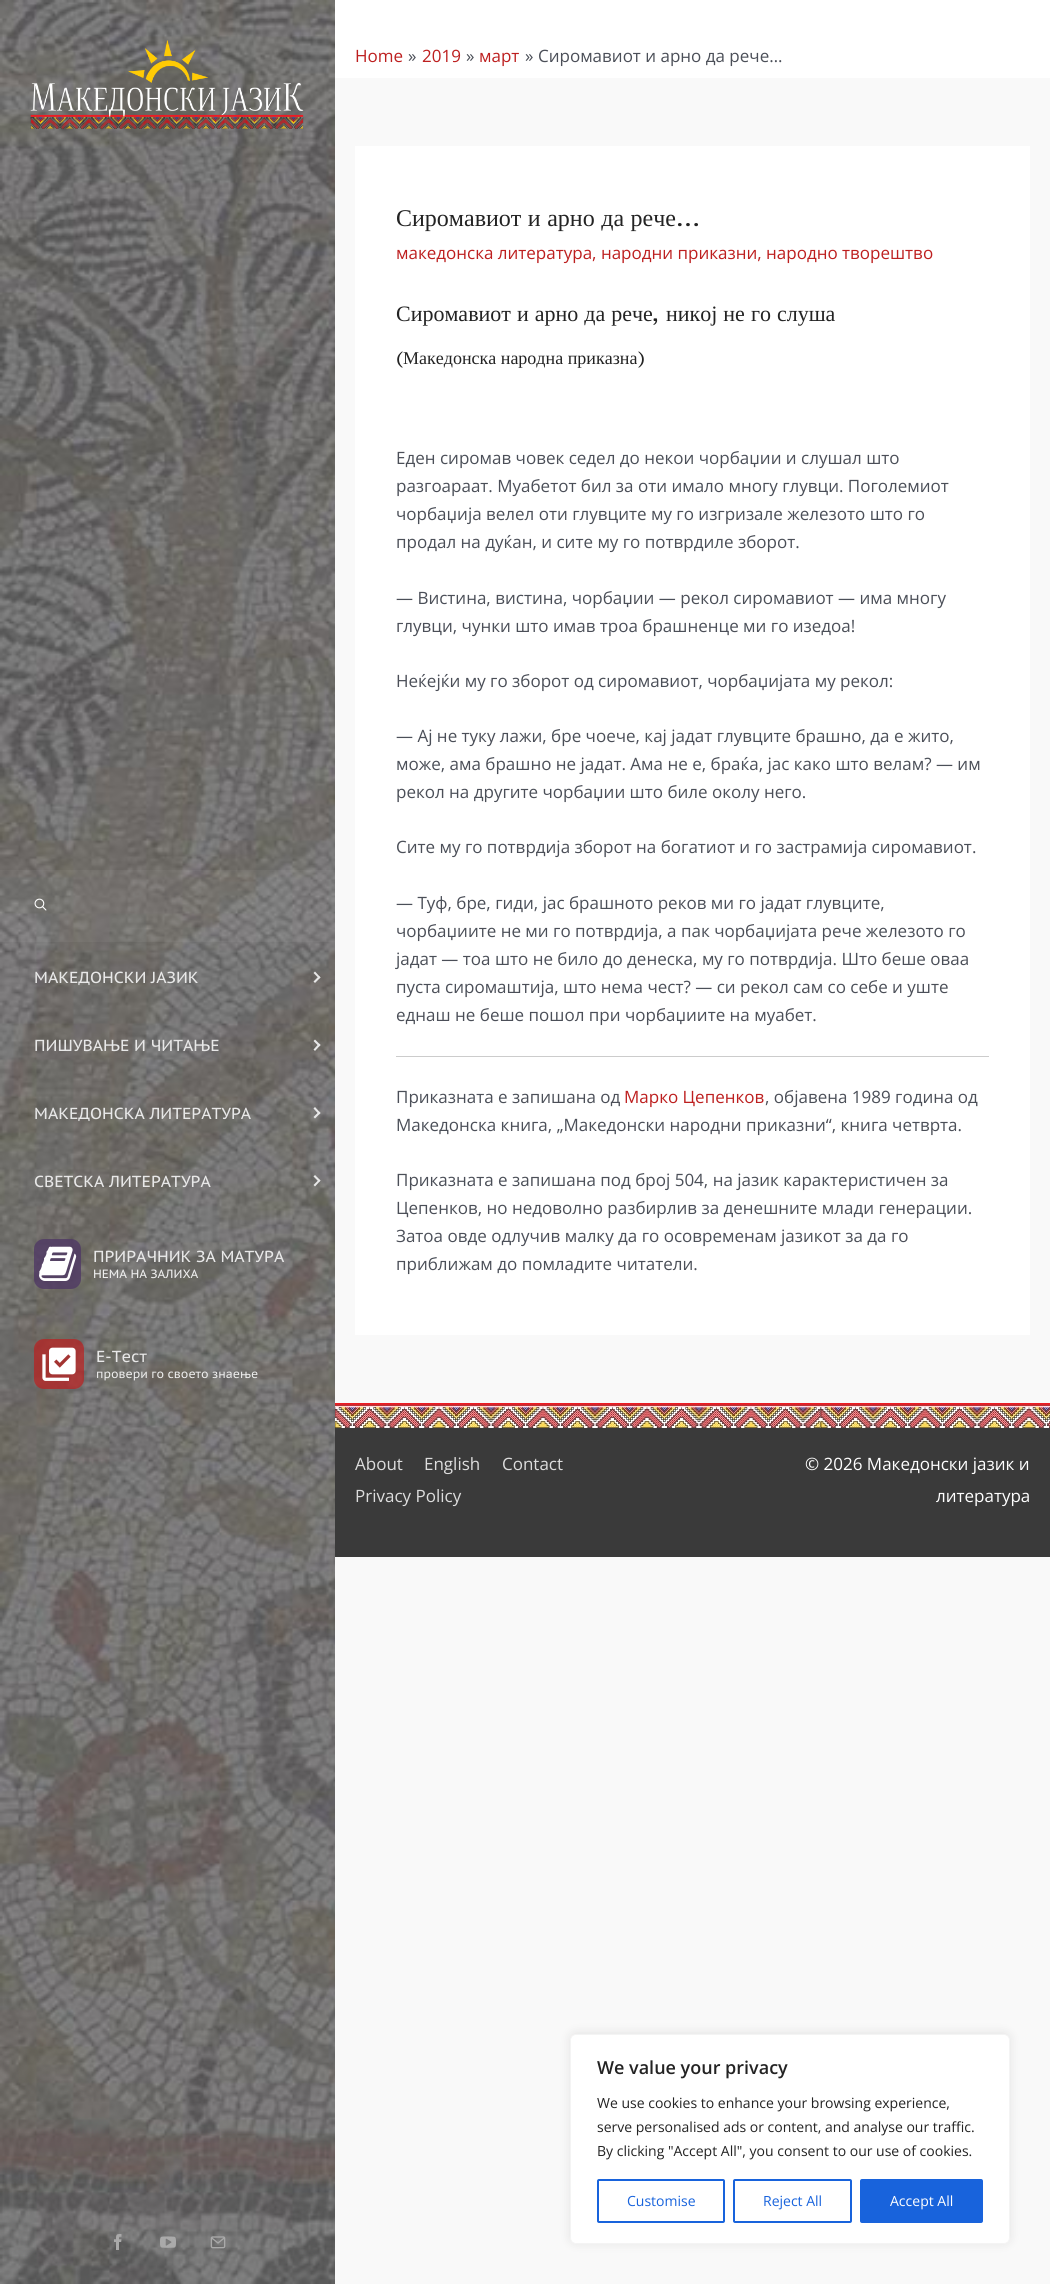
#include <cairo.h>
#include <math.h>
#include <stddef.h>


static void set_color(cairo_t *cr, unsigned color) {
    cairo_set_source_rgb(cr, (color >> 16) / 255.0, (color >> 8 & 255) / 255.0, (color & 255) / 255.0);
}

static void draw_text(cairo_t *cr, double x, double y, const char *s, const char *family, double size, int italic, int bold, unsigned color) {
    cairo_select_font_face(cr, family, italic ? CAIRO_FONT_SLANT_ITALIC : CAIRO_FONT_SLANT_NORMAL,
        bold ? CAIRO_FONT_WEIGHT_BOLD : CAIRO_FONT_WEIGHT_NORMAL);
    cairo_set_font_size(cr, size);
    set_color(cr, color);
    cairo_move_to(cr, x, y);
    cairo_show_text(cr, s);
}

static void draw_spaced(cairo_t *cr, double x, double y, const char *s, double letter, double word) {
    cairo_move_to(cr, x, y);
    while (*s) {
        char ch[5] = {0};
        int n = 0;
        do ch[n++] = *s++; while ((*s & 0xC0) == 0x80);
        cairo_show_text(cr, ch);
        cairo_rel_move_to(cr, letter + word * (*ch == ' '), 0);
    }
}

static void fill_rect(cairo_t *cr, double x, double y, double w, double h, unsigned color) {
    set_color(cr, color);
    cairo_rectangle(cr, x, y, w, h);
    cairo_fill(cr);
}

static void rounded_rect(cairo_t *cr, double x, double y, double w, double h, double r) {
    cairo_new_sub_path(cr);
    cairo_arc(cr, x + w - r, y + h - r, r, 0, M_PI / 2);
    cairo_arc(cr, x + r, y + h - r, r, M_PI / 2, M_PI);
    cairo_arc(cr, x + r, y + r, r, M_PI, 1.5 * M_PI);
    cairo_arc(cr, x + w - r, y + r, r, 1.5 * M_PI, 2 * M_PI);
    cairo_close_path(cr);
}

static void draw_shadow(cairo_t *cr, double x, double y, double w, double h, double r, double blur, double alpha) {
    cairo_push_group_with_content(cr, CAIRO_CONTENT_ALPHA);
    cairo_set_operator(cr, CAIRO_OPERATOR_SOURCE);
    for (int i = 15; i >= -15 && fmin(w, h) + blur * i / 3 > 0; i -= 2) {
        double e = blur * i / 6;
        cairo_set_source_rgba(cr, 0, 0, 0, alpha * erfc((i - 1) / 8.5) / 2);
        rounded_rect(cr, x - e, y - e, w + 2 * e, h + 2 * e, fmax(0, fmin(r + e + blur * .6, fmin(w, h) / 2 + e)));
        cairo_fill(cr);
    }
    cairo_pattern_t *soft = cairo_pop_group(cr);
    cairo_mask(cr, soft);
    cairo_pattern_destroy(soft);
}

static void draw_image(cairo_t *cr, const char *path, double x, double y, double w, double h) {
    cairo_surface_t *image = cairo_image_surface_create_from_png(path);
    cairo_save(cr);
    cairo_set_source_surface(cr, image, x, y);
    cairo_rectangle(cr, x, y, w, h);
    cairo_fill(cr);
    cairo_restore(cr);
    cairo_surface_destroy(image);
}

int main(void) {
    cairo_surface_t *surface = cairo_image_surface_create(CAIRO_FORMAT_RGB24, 1050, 2284);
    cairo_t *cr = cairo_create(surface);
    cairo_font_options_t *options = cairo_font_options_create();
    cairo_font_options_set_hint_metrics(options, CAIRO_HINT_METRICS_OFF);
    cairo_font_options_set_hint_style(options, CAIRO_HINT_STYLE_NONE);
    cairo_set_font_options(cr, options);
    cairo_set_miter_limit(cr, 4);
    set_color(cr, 0xF9F9F9);
    cairo_paint(cr);
    draw_image(cr, "assets/img1.png", 0, 0, 335, 2284);
    draw_image(cr, "assets/img2.png", 30, 40, 274, 89);
    cairo_set_source_rgba(cr, 1, 1, 1, 0.05);
    cairo_rectangle(cr, 0, 870, 335, 72);
    cairo_fill(cr);
    draw_image(cr, "assets/img3.png", 34, 898, 13, 13);
    draw_text(cr, 34, 983, "МАКЕДОНСКИ ЈАЗИК", "PT Sans Caption", 16, 0, 0, 0xE8E8E8);
    cairo_new_path(cr);
    cairo_move_to(cr, 315, 971.5);
    cairo_line_to(cr, 320.5, 977.5);
    cairo_line_to(cr, 319, 978.5);
    cairo_line_to(cr, 313.5, 973);
    cairo_close_path(cr);
    cairo_fill(cr);
    cairo_new_path(cr);
    cairo_move_to(cr, 319, 976);
    cairo_line_to(cr, 320.5, 977.5);
    cairo_line_to(cr, 315, 983);
    cairo_line_to(cr, 313.5, 981.5);
    cairo_close_path(cr);
    cairo_fill(cr);
    draw_text(cr, 34, 1051, "ПИШУВАЊЕ И ЧИТАЊЕ", "PT Sans Caption", 16, 0, 0, 0xE8E8E8);
    cairo_new_path(cr);
    cairo_move_to(cr, 315, 1039.5);
    cairo_line_to(cr, 320.5, 1045);
    cairo_line_to(cr, 319, 1046.5);
    cairo_line_to(cr, 313.5, 1041);
    cairo_close_path(cr);
    cairo_fill(cr);
    cairo_new_path(cr);
    cairo_move_to(cr, 319, 1043.5);
    cairo_line_to(cr, 320.5, 1045);
    cairo_line_to(cr, 315, 1051);
    cairo_line_to(cr, 313.5, 1049.5);
    cairo_close_path(cr);
    cairo_fill(cr);
    draw_text(cr, 34, 1119, "МАКЕДОНСКА ЛИТЕРАТУРА", "PT Sans Caption", 16, 0, 0, 0xE8E8E8);
    cairo_new_path(cr);
    cairo_move_to(cr, 315, 1107);
    cairo_line_to(cr, 320.5, 1113);
    cairo_line_to(cr, 319, 1114.5);
    cairo_line_to(cr, 313.5, 1108.5);
    cairo_close_path(cr);
    cairo_fill(cr);
    cairo_new_path(cr);
    cairo_move_to(cr, 319, 1111.5);
    cairo_line_to(cr, 320.5, 1113);
    cairo_line_to(cr, 315, 1118.5);
    cairo_line_to(cr, 313.5, 1117);
    cairo_close_path(cr);
    cairo_fill(cr);
    draw_text(cr, 34, 1187, "СВЕТСКА ЛИТЕРАТУРА", "PT Sans Caption", 16, 0, 0, 0xE8E8E8);
    cairo_new_path(cr);
    cairo_move_to(cr, 315, 1175);
    cairo_line_to(cr, 320.5, 1180.5);
    cairo_line_to(cr, 319, 1182);
    cairo_line_to(cr, 313.5, 1176.5);
    cairo_close_path(cr);
    cairo_fill(cr);
    cairo_new_path(cr);
    cairo_move_to(cr, 319, 1179.5);
    cairo_line_to(cr, 320.5, 1180.5);
    cairo_line_to(cr, 315, 1186.5);
    cairo_line_to(cr, 313.5, 1185);
    cairo_close_path(cr);
    cairo_fill(cr);
    cairo_set_source_rgba(cr, 0.31, 0.224, 0.392, 0.8);
    rounded_rect(cr, 34, 1239, 47, 50, 10);
    cairo_fill(cr);
    draw_image(cr, "assets/img4.png", 39, 1246, 38, 35);
    draw_text(cr, 93, 1262, "ПРИРАЧНИК ЗА МАТУРА", "PT Sans Caption", 16, 0, 0, 0xE8E8E8);
    draw_text(cr, 93, 1278, "НЕМА НА ЗАЛИХА", "PT Sans Caption", 12, 0, 0, 0xEEEEEE);
    cairo_set_source_rgba(cr, 0.741, 0.122, 0.122, 0.7);
    rounded_rect(cr, 34, 1339, 50, 50, 10);
    cairo_fill(cr);
    draw_image(cr, "assets/img5.png", 42, 1347, 34, 34);
    draw_text(cr, 96, 1362, "Е-Тест", "PT Sans Caption", 16, 0, 0, 0xE8E8E8);
    draw_text(cr, 96, 1378, "провери го своето знаење", "PT Sans Caption", 12, 0, 0, 0xEEEEEE);
    draw_image(cr, "assets/img6.png", 114, 2234, 8, 16);
    draw_image(cr, "assets/img7.png", 160, 2236, 16, 12);
    draw_image(cr, "assets/img8.png", 210, 2236, 16, 13);
    fill_rect(cr, 335, 0, 715, 78, 0xFFFFFF);
    draw_text(cr, 355, 62, "Home", "Open Sans", 17, 0, 0, 0xBD1F1F);
    draw_text(cr, 408, 62, "»", "Open Sans", 17, 0, 0, 0x4B4F58);
    draw_text(cr, 422, 62, "2019", "Open Sans", 17, 0, 0, 0xBD1F1F);
    draw_text(cr, 466, 62, "»", "Open Sans", 17, 0, 0, 0x4B4F58);
    draw_text(cr, 479, 62, "март", "Open Sans", 17, 0, 0, 0xBD1F1F);
    draw_text(cr, 525, 62, "»", "Open Sans", 17, 0, 0, 0x4B4F58);
    draw_text(cr, 538, 62, "Сиромавиот и арно да рече…", "Open Sans", 17, 0, 0, 0x4B4F58);
    fill_rect(cr, 355, 146, 675, 1189, 0xFFFFFF);
    cairo_select_font_face(cr, "Liberation Serif", CAIRO_FONT_SLANT_NORMAL, CAIRO_FONT_WEIGHT_NORMAL);
    cairo_set_font_size(cr, 24);
    set_color(cr, 0x232323);
    draw_spaced(cr, 396, 226, "Сиромавиот и арно да рече", 0, 0.5);
    draw_text(cr, 676, 226, "…", "PT Serif Caption", 24, 0, 0, 0x232323);
    draw_text(cr, 396, 259, "македонска литература, народни приказни, народно творештво", "Open Sans", 17, 0, 0, 0xBD1F1F);
    cairo_select_font_face(cr, "Liberation Serif", CAIRO_FONT_SLANT_NORMAL, CAIRO_FONT_WEIGHT_NORMAL);
    cairo_set_font_size(cr, 22);
    set_color(cr, 0x232323);
    draw_spaced(cr, 396, 321, "Сиромавиот и арно да рече", 0, 0.5);
    draw_text(cr, 652, 321, ",", "PT Serif Caption", 22, 0, 0, 0x232323);
    cairo_select_font_face(cr, "Liberation Serif", CAIRO_FONT_SLANT_NORMAL, CAIRO_FONT_WEIGHT_NORMAL);
    draw_spaced(cr, 666, 321, "никој не го слуша", 0, 0.5);
    draw_text(cr, 396, 364, "(", "PT Serif Caption", 18, 0, 0, 0x232323);
    draw_text(cr, 403, 364, "Македонска народна приказна", "Liberation Serif", 18, 0, 0, 0x232323);
    draw_text(cr, 638, 364, ")", "PT Serif Caption", 18, 0, 0, 0x232323);
    draw_text(cr, 396, 464, "Еден сиромав човек седел до некои чорбаџии и слушал што", "Open Sans", 17, 0, 0, 0x4B4F58);
    draw_text(cr, 396, 492, "разгоараат. Муабетот бил за оти имало многу глувци. Поголемиот", "Open Sans", 17, 0, 0, 0x4B4F58);
    draw_text(cr, 396, 520, "чорбаџија велел оти глувците му го изгризале железото што го", "Open Sans", 17, 0, 0, 0x4B4F58);
    draw_text(cr, 396, 548, "продал на дуќан, и сите му го потврдиле зборот.", "Open Sans", 17, 0, 0, 0x4B4F58);
    draw_text(cr, 396, 604, "— Вистина, вистина, чорбаџии — рекол сиромавиот — има многу", "Open Sans", 17, 0, 0, 0x4B4F58);
    draw_text(cr, 396, 632, "глувци, чунки што имав троа брашненце ми го изедоа!", "Open Sans", 17, 0, 0, 0x4B4F58);
    draw_text(cr, 396, 687, "Неќејќи му го зборот од сиромавиот, чорбаџијата му рекол:", "Open Sans", 17, 0, 0, 0x4B4F58);
    draw_text(cr, 396, 742, "— Ај не туку лажи, бре чоече, кај јадат глувците брашно, да е жито,", "Open Sans", 17, 0, 0, 0x4B4F58);
    draw_text(cr, 396, 770, "може, ама брашно не јадат. Ама не е, браќа, јас како што велам? — им", "Open Sans", 17, 0, 0, 0x4B4F58);
    draw_text(cr, 396, 798, "рекол на другите чорбаџии што биле околу него.", "Open Sans", 17, 0, 0, 0x4B4F58);
    draw_text(cr, 396, 853, "Сите му го потврдија зборот на богатиот и го застрамија сиромавиот.", "Open Sans", 17, 0, 0, 0x4B4F58);
    draw_text(cr, 396, 909, "— Туф, бре, гиди, јас брашното реков ми го јадат глувците,", "Open Sans", 17, 0, 0, 0x4B4F58);
    draw_text(cr, 396, 937, "чорбаџиите не ми го потврдија, а пак чорбаџијата рече железото го", "Open Sans", 17, 0, 0, 0x4B4F58);
    draw_text(cr, 396, 965, "јадат — тоа што не било до денеска, му го потврдија. Што беше оваа", "Open Sans", 17, 0, 0, 0x4B4F58);
    draw_text(cr, 396, 993, "пуста сиромаштија, што нема чест? — си рекол сам со себе и уште", "Open Sans", 17, 0, 0, 0x4B4F58);
    draw_text(cr, 396, 1021, "еднаш не беше пошол при чорбаџиите на муабет.", "Open Sans", 17, 0, 0, 0x4B4F58);
    fill_rect(cr, 396, 1056, 593, 1, 0xCCCCCC);
    draw_text(cr, 396, 1103, "Приказната е запишана од", "Open Sans", 17, 0, 0, 0x4B4F58);
    draw_text(cr, 624, 1103, "Марко Цепенков", "Open Sans", 17, 0, 0, 0xBD1F1F);
    draw_text(cr, 765, 1103, ", објавена 1989 година од", "Open Sans", 17, 0, 0, 0x4B4F58);
    draw_text(cr, 396, 1131, "Македонска книга, „Македонски народни приказни“, книга четврта.", "Open Sans", 17, 0, 0, 0x4B4F58);
    draw_text(cr, 396, 1186, "Приказната е запишана под број 504, на јазик карактеристичен за", "Open Sans", 17, 0, 0, 0x4B4F58);
    draw_text(cr, 396, 1214, "Цепенков, но недоволно разбирлив за денешните млади генерации.", "Open Sans", 17, 0, 0, 0x4B4F58);
    draw_text(cr, 396, 1242, "Затоа овде одлучив малку да го осовременам јазикот за да го", "Open Sans", 17, 0, 0, 0x4B4F58);
    draw_text(cr, 396, 1270, "приближам до помладите читатели.", "Open Sans", 17, 0, 0, 0x4B4F58);
    fill_rect(cr, 335, 1428, 715, 129, 0x3A3A3A);
    draw_image(cr, "assets/img9.png", 335, 1403, 715, 25);
    draw_text(cr, 355, 1470, "About", "Open Sans", 17, 0, 0, 0xDDDDDD);
    draw_text(cr, 424, 1470, "English", "Open Sans", 17, 0, 0, 0xDDDDDD);
    draw_text(cr, 502, 1470, "Contact", "Open Sans", 17, 0, 0, 0xDDDDDD);
    draw_text(cr, 355, 1502, "Privacy Policy", "Open Sans", 17, 0, 0, 0xDDDDDD);
    draw_text(cr, 805, 1470, "© 2026 Македонски јазик и", "Open Sans", 17, 0, 0, 0xFFFFFF);
    draw_text(cr, 936, 1502, "литература", "Open Sans", 17, 0, 0, 0xFFFFFF);
    set_color(cr, 0xACABAB);
    draw_shadow(cr, 570, 2033, 440, 210, 6, 5, 0.3);
    set_color(cr, 0xFFFFFF);
    rounded_rect(cr, 570.5, 2034.5, 439, 209, 5.5);
    cairo_fill_preserve(cr);
    set_color(cr, 0xF4F4F4);
    cairo_set_line_width(cr, 1);
    cairo_stroke(cr);
    draw_text(cr, 597, 2074, "We value your privacy", "Open Sans SemiBold", 18, 0, 0, 0x232323);
    draw_text(cr, 597, 2108, "We use cookies to enhance your browsing experience,", "Open Sans", 14, 0, 0, 0x232323);
    draw_text(cr, 597, 2132, "serve personalised ads or content, and analyse our traffic.", "Open Sans", 14, 0, 0, 0x232323);
    draw_text(cr, 597, 2156, "By clicking \"Accept All\", you consent to our use of cookies.", "Open Sans", 14, 0, 0, 0x232323);
    rounded_rect(cr, 598, 2180, 126, 42, 1);
    set_color(cr, 0x1863DC);
    cairo_set_line_width(cr, 2);
    cairo_stroke(cr);
    draw_text(cr, 627, 2206, "Customise", "Open Sans", 14, 0, 0, 0x1863DC);
    rounded_rect(cr, 734, 2180, 117, 42, 1);
    cairo_stroke(cr);
    draw_text(cr, 763, 2206, "Reject All", "Open Sans", 14, 0, 0, 0x1863DC);
    rounded_rect(cr, 861, 2180, 121, 42, 1);
    cairo_fill_preserve(cr);
    cairo_stroke(cr);
    draw_text(cr, 890, 2206, "Accept All", "Open Sans", 14, 0, 0, 0xFFFFFF);
    cairo_surface_write_to_png(surface, "output.png");
    cairo_font_options_destroy(options);
    cairo_destroy(cr);
    cairo_surface_destroy(surface);
    return 0;
}
